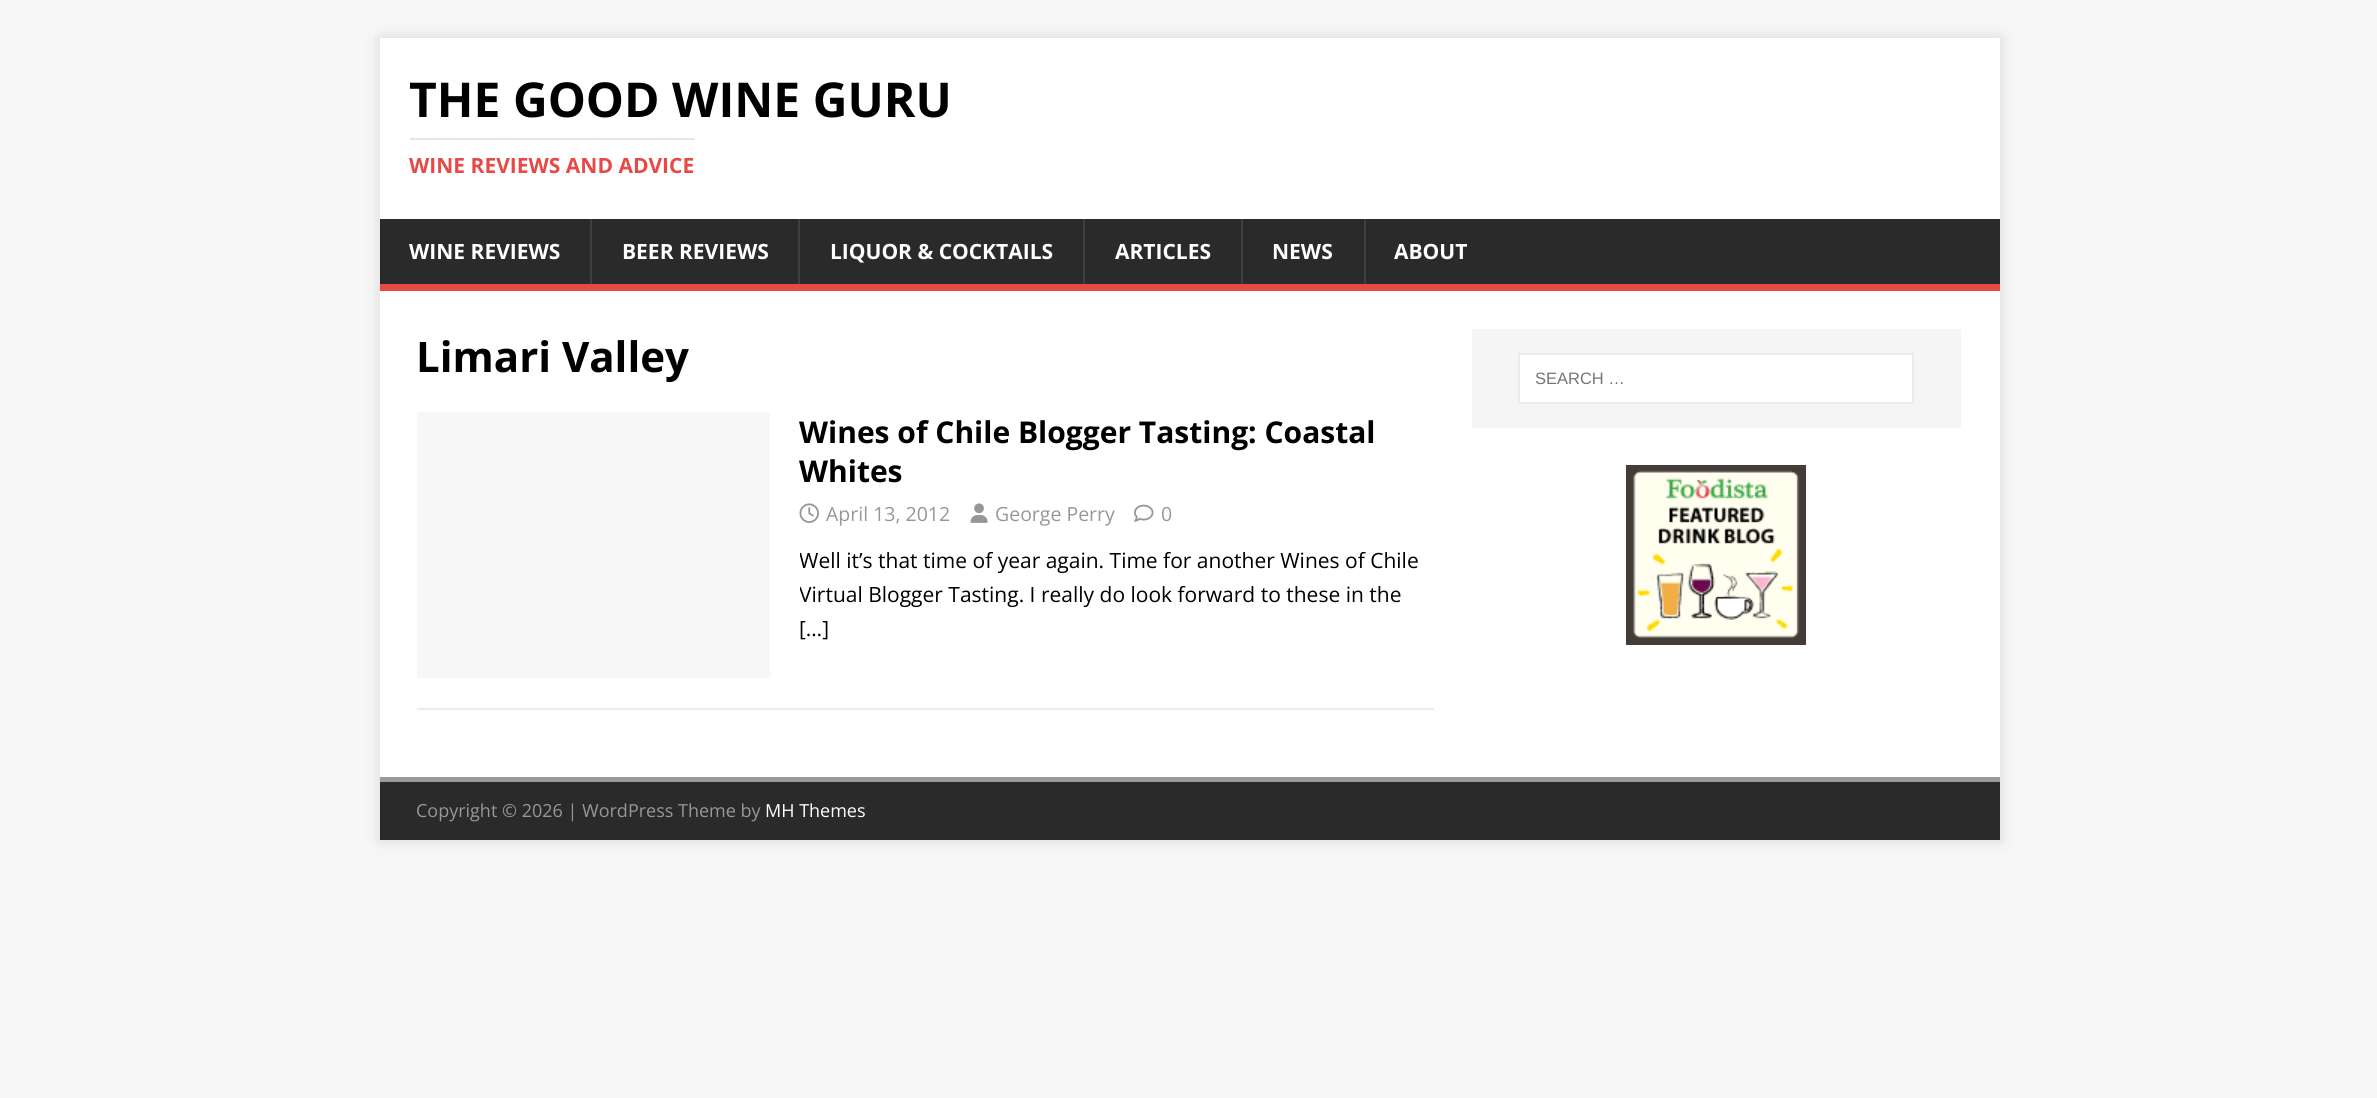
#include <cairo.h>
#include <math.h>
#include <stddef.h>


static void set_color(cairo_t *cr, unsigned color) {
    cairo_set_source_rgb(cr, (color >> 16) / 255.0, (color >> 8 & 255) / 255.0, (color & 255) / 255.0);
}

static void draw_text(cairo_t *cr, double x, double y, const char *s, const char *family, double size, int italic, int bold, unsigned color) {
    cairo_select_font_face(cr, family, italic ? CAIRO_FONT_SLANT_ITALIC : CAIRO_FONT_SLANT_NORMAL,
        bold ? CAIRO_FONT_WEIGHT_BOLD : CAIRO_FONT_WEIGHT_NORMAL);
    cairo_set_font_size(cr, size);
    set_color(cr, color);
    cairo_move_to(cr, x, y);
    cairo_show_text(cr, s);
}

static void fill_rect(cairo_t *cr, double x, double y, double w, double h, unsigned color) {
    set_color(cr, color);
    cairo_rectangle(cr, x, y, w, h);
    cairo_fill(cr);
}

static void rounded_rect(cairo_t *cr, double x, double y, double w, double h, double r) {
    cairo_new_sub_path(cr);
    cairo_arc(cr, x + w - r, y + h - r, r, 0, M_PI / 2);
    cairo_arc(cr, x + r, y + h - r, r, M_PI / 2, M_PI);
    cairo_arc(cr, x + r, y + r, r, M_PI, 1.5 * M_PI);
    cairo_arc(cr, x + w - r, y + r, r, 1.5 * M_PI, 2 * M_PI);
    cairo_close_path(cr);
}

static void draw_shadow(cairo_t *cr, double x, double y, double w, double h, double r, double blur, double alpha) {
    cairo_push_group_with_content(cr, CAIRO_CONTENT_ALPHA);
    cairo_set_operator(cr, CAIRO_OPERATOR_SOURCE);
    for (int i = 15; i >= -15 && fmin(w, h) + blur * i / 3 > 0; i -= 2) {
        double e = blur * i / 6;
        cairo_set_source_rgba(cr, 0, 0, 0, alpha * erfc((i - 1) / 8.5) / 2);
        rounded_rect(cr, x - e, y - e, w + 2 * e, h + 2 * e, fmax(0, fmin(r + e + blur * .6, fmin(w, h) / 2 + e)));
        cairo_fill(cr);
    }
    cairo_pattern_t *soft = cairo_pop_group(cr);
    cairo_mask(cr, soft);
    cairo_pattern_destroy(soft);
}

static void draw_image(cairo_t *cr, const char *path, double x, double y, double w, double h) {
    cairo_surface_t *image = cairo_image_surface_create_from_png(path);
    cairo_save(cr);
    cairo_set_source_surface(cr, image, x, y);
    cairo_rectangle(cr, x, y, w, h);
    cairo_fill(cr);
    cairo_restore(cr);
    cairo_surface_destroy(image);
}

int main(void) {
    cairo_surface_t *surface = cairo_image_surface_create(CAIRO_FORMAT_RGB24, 2377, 1098);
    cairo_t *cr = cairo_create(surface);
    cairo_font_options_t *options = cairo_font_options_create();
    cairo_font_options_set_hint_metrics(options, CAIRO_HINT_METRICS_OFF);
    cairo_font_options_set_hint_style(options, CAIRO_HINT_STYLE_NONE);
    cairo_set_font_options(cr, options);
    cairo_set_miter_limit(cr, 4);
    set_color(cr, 0xF7F7F7);
    cairo_paint(cr);
    set_color(cr, 0x323232);
    draw_shadow(cr, 380, 38, 1620, 802, 0, 7.5, 0.17);
    fill_rect(cr, 380, 38, 1620, 181, 0xFFFFFF);
    draw_text(cr, 409, 117, "THE GOOD WINE GURU", "Open Sans", 48, 0, 1, 0x000000);
    fill_rect(cr, 410, 138, 285, 2, 0xE5E5E5);
    draw_text(cr, 409, 173, "WINE REVIEWS AND ADVICE", "Open Sans", 21, 0, 1, 0xE64946);
    fill_rect(cr, 380, 219, 1620, 65, 0x2A2A2A);
    fill_rect(cr, 380, 284, 1620, 7, 0xE64946);
    draw_text(cr, 409, 259, "WINE REVIEWS", "Open Sans", 21, 0, 1, 0xFFFFFF);
    fill_rect(cr, 590, 219, 2, 65, 0x3F3F3F);
    draw_text(cr, 622, 259, "BEER REVIEWS", "Open Sans", 21, 0, 1, 0xFFFFFF);
    fill_rect(cr, 798, 219, 2, 65, 0x3F3F3F);
    draw_text(cr, 830, 259, "LIQUOR & COCKTAILS", "Open Sans", 21, 0, 1, 0xFFFFFF);
    fill_rect(cr, 1083, 219, 2, 65, 0x3F3F3F);
    draw_text(cr, 1115, 259, "ARTICLES", "Open Sans", 21, 0, 1, 0xFFFFFF);
    fill_rect(cr, 1241, 219, 2, 65, 0x3F3F3F);
    draw_text(cr, 1272, 259, "NEWS", "Open Sans", 21, 0, 1, 0xFFFFFF);
    fill_rect(cr, 1364, 219, 2, 65, 0x3F3F3F);
    draw_text(cr, 1394, 259, "ABOUT", "Open Sans", 21, 0, 1, 0xFFFFFF);
    fill_rect(cr, 380, 291, 1620, 486, 0xFFFFFF);
    draw_text(cr, 416, 372, "Limari Valley", "Open Sans", 42, 0, 1, 0x000000);
    fill_rect(cr, 417, 708, 1017, 2, 0xEBEBEB);
    fill_rect(cr, 417, 412, 353, 266, 0xF7F7F7);
    draw_text(cr, 799, 443, "Wines of Chile Blogger Tasting: Coastal", "Open Sans", 30, 0, 1, 0x000000);
    draw_text(cr, 799, 482, "Whites", "Open Sans", 30, 0, 1, 0x000000);
    draw_image(cr, "assets/img1.png", 799, 503, 20, 20);
    draw_text(cr, 826, 521, "April 13, 2012", "Open Sans", 19.5, 0, 0, 0x979797);
    draw_image(cr, "assets/img2.png", 970, 503, 18, 20);
    draw_text(cr, 995, 521, "George Perry", "Open Sans", 19.5, 0, 0, 0x979797);
    draw_image(cr, "assets/img3.png", 1134, 504, 20, 18);
    draw_text(cr, 1161, 521, "0", "Open Sans", 19.5, 0, 0, 0x979797);
    cairo_save(cr);
    cairo_rectangle(cr, 800, 545, 634, 100);
    cairo_clip(cr);
    draw_text(cr, 799, 568, "Well it’s that time of year again. Time for another Wines of Chile", "Open Sans", 21, 0, 0, 0x000000);
    draw_text(cr, 799, 602, "Virtual Blogger Tasting. I really do look forward to these in the", "Open Sans", 21, 0, 0, 0x000000);
    cairo_restore(cr);
    draw_text(cr, 799, 636, "[…]", "Open Sans", 21, 0, 0, 0x000000);
    fill_rect(cr, 1472, 329, 489, 99, 0xF5F5F5);
    set_color(cr, 0xFFFFFF);
    cairo_rectangle(cr, 1519, 354, 394, 49);
    cairo_fill_preserve(cr);
    set_color(cr, 0xEBEBEB);
    cairo_stroke(cr);
    draw_text(cr, 1535, 384, "SEARCH …", "Liberation Sans", 16.5, 0, 0, 0x757575);
    draw_image(cr, "assets/img4.png", 1626, 465, 180, 180);
    fill_rect(cr, 380, 782, 1620, 58, 0x2A2A2A);
    fill_rect(cr, 380, 777, 1620, 5, 0x999999);
    draw_text(cr, 416, 817, "Copyright © 2026 | WordPress Theme by", "Open Sans", 18, 0, 0, 0x979797);
    draw_text(cr, 765, 817, "MH Themes", "Open Sans", 18, 0, 0, 0xFFFFFF);
    cairo_surface_write_to_png(surface, "output.png");
    cairo_font_options_destroy(options);
    cairo_destroy(cr);
    cairo_surface_destroy(surface);
    return 0;
}
